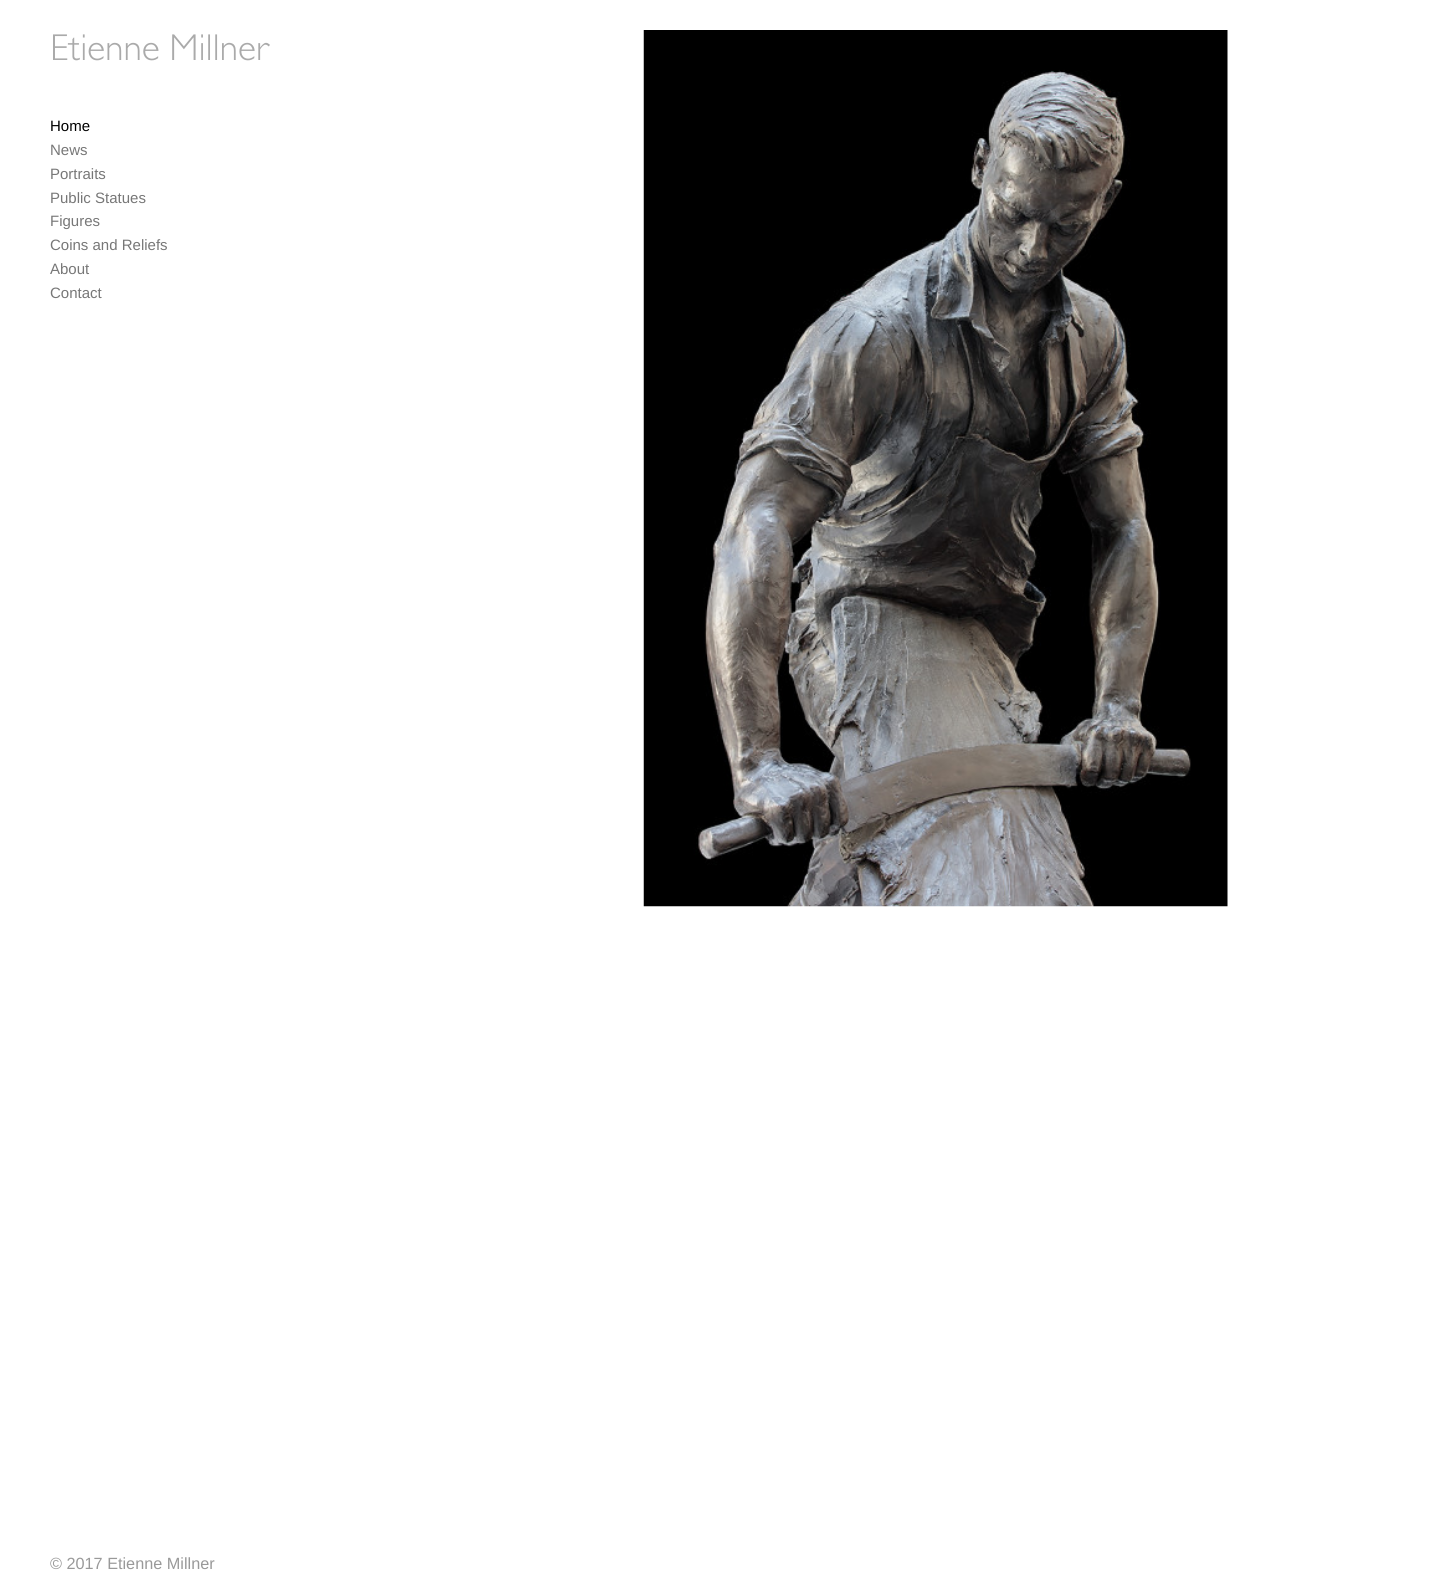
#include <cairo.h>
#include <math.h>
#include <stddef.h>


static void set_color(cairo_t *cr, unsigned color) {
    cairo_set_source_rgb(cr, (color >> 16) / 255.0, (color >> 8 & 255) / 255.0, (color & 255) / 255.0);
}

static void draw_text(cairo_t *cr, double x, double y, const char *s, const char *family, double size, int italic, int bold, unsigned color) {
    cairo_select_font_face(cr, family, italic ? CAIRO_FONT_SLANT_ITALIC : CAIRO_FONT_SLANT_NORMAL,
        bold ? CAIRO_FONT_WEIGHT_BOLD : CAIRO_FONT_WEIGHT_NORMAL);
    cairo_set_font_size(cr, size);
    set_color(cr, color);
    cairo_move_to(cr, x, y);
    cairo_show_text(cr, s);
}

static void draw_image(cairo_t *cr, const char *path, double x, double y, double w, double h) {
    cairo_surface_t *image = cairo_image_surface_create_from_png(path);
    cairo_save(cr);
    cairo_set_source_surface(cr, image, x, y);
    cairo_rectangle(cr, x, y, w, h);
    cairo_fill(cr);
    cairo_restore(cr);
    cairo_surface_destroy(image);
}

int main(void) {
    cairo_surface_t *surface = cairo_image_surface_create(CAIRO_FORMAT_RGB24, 1444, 1591);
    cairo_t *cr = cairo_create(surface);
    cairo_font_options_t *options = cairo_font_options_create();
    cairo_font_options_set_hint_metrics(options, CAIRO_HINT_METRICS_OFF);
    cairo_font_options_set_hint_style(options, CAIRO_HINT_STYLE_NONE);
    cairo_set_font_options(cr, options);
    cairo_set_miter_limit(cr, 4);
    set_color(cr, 0xFFFFFF);
    cairo_paint(cr);
    draw_image(cr, "assets/img1.png", 53, 34, 217, 27);
    draw_text(cr, 50, 131, "Home", "Liberation Sans", 15, 0, 0, 0x000000);
    draw_text(cr, 50, 155, "News", "Liberation Sans", 15, 0, 0, 0x777777);
    draw_text(cr, 50, 179, "Portraits", "Liberation Sans", 15, 0, 0, 0x777777);
    draw_text(cr, 50, 203, "Public Statues", "Liberation Sans", 15, 0, 0, 0x777777);
    draw_text(cr, 50, 226, "Figures", "Liberation Sans", 15, 0, 0, 0x777777);
    draw_text(cr, 50, 250, "Coins and Reliefs", "Liberation Sans", 15, 0, 0, 0x777777);
    draw_text(cr, 50, 274, "About", "Liberation Sans", 15, 0, 0, 0x777777);
    draw_text(cr, 50, 298, "Contact", "Liberation Sans", 15, 0, 0, 0x777777);
    draw_image(cr, "assets/img2.png", 643, 30, 585, 877);
    draw_text(cr, 50, 1569, "© 2017 Etienne Millner", "Liberation Sans", 16.25, 0, 0, 0x999999);
    cairo_surface_write_to_png(surface, "output.png");
    cairo_font_options_destroy(options);
    cairo_destroy(cr);
    cairo_surface_destroy(surface);
    return 0;
}
